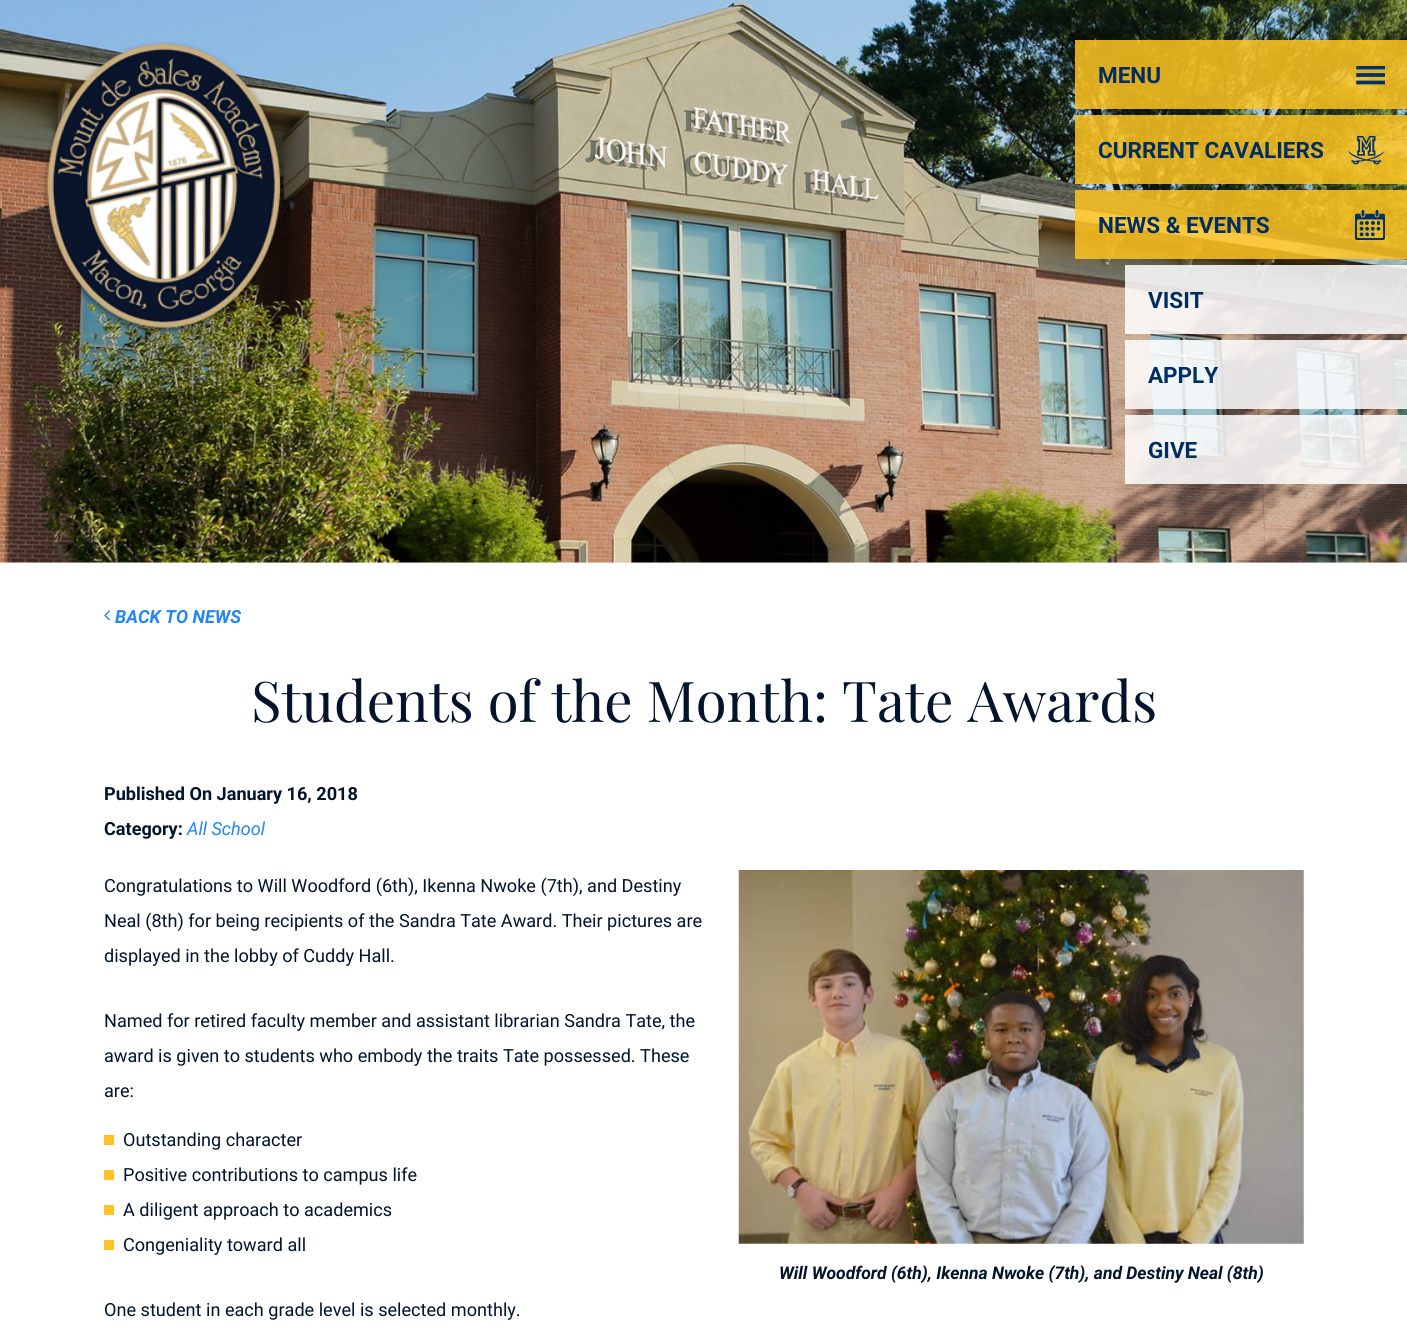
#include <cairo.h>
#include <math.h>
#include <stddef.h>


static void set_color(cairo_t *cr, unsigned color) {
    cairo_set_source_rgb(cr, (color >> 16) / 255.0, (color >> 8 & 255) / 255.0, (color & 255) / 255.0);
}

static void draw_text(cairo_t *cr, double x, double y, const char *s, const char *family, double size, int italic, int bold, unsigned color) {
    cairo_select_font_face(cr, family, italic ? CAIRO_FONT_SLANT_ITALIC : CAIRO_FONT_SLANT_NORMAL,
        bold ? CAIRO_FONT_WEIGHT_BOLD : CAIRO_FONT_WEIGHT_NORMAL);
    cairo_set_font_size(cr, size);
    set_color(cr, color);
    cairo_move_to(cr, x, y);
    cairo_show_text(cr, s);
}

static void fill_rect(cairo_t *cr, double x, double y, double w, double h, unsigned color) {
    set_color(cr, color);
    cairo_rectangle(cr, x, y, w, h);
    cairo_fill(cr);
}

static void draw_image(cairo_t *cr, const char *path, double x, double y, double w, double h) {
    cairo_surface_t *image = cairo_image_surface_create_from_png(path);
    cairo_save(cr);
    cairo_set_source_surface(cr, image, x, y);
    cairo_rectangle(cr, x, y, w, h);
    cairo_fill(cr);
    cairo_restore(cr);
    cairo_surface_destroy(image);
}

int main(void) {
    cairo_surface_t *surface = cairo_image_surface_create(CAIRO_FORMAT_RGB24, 1407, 1335);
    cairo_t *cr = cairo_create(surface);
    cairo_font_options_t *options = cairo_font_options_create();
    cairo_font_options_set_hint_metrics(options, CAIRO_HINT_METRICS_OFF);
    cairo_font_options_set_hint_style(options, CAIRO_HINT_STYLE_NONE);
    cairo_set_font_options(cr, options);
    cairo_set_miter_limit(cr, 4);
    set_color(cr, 0xEEEEEE);
    cairo_paint(cr);
    draw_image(cr, "assets/img1.png", 0, 0, 1407, 563);
    draw_image(cr, "assets/img2.png", 42, 42, 243, 295);
    cairo_set_source_rgba(cr, 1, 0.769, 0.137, 0.85);
    cairo_rectangle(cr, 1075, 40, 332, 69);
    cairo_fill(cr);
    draw_text(cr, 1098, 83, "MENU", "Roboto", 22.5, 0, 1, 0x002D62);
    draw_image(cr, "assets/img3.png", 1356, 66, 29, 19);
    cairo_set_source_rgba(cr, 1, 0.769, 0.137, 0.85);
    cairo_rectangle(cr, 1075, 115, 332, 69);
    cairo_fill(cr);
    draw_text(cr, 1098, 158, "CURRENT CAVALIERS", "Roboto", 22.5, 0, 1, 0x002D62);
    draw_image(cr, "assets/img4.png", 1348, 136, 37, 29);
    cairo_set_source_rgba(cr, 1, 0.769, 0.137, 0.85);
    cairo_rectangle(cr, 1075, 190, 332, 69);
    cairo_fill(cr);
    draw_text(cr, 1098, 233, "NEWS & EVENTS", "Roboto", 22.5, 0, 1, 0x002D62);
    draw_image(cr, "assets/img5.png", 1355, 210, 30, 30);
    cairo_set_source_rgba(cr, 1, 1, 1, 0.85);
    cairo_rectangle(cr, 1125, 265, 282, 69);
    cairo_fill(cr);
    draw_text(cr, 1148, 308, "VISIT", "Roboto", 22.5, 0, 1, 0x002D62);
    cairo_set_source_rgba(cr, 1, 1, 1, 0.85);
    cairo_rectangle(cr, 1125, 340, 282, 69);
    cairo_fill(cr);
    draw_text(cr, 1148, 383, "APPLY", "Roboto", 22.5, 0, 1, 0x002D62);
    cairo_set_source_rgba(cr, 1, 1, 1, 0.85);
    cairo_rectangle(cr, 1125, 415, 282, 69);
    cairo_fill(cr);
    draw_text(cr, 1148, 458, "GIVE", "Roboto", 22.5, 0, 1, 0x002D62);
    fill_rect(cr, 0, 563, 1407, 772, 0xFFFFFF);
    draw_image(cr, "assets/img6.png", 104, 610, 6, 11);
    draw_text(cr, 115, 623, "BACK TO NEWS", "Roboto", 18.1, 1, 1, 0x2285F4);
    draw_text(cr, 251, 722, "Students of the Month: Tate Awards", "Playfair Display", 56.25, 0, 0, 0x01142B);
    draw_text(cr, 104, 800, "Published On January 16, 2018", "Roboto", 18.1, 0, 1, 0x01142B);
    draw_text(cr, 104, 835, "Category:", "Roboto", 18.1, 0, 1, 0x01142B);
    draw_text(cr, 187, 835, "All School", "Roboto", 18.1, 1, 0, 0x2285F4);
    draw_text(cr, 104, 892, "Congratulations to Will Woodford (6th), Ikenna Nwoke (7th), and Destiny", "Roboto", 18.1, 0, 0, 0x01142B);
    draw_text(cr, 104, 927, "Neal (8th) for being recipients of the Sandra Tate Award. Their pictures are", "Roboto", 18.1, 0, 0, 0x01142B);
    draw_text(cr, 104, 962, "displayed in the lobby of Cuddy Hall.", "Roboto", 18.1, 0, 0, 0x01142B);
    draw_text(cr, 104, 1027, "Named for retired faculty member and assistant librarian Sandra Tate, the", "Roboto", 18.1, 0, 0, 0x01142B);
    draw_text(cr, 104, 1062, "award is given to students who embody the traits Tate possessed. These", "Roboto", 18.1, 0, 0, 0x01142B);
    draw_text(cr, 104, 1097, "are:", "Roboto", 18.1, 0, 0, 0x01142B);
    fill_rect(cr, 104, 1135, 10, 10, 0xFFC423);
    draw_text(cr, 123, 1146, "Outstanding character", "Roboto", 18.1, 0, 0, 0x01142B);
    fill_rect(cr, 104, 1170, 10, 10, 0xFFC423);
    draw_text(cr, 123, 1181, "Positive contributions to campus life", "Roboto", 18.1, 0, 0, 0x01142B);
    fill_rect(cr, 104, 1205, 10, 10, 0xFFC423);
    draw_text(cr, 123, 1216, "A diligent approach to academics", "Roboto", 18.1, 0, 0, 0x01142B);
    fill_rect(cr, 104, 1240, 10, 10, 0xFFC423);
    draw_text(cr, 123, 1251, "Congeniality toward all", "Roboto", 18.1, 0, 0, 0x01142B);
    draw_image(cr, "assets/img7.png", 738, 870, 566, 374);
    draw_text(cr, 779, 1279, "Will Woodford (6th), Ikenna Nwoke (7th), and Destiny Neal (8th)", "Roboto", 17.5, 1, 1, 0x01142B);
    draw_text(cr, 104, 1316, "One student in each grade level is selected monthly.", "Roboto", 18.1, 0, 0, 0x01142B);
    cairo_surface_write_to_png(surface, "output.png");
    cairo_font_options_destroy(options);
    cairo_destroy(cr);
    cairo_surface_destroy(surface);
    return 0;
}
